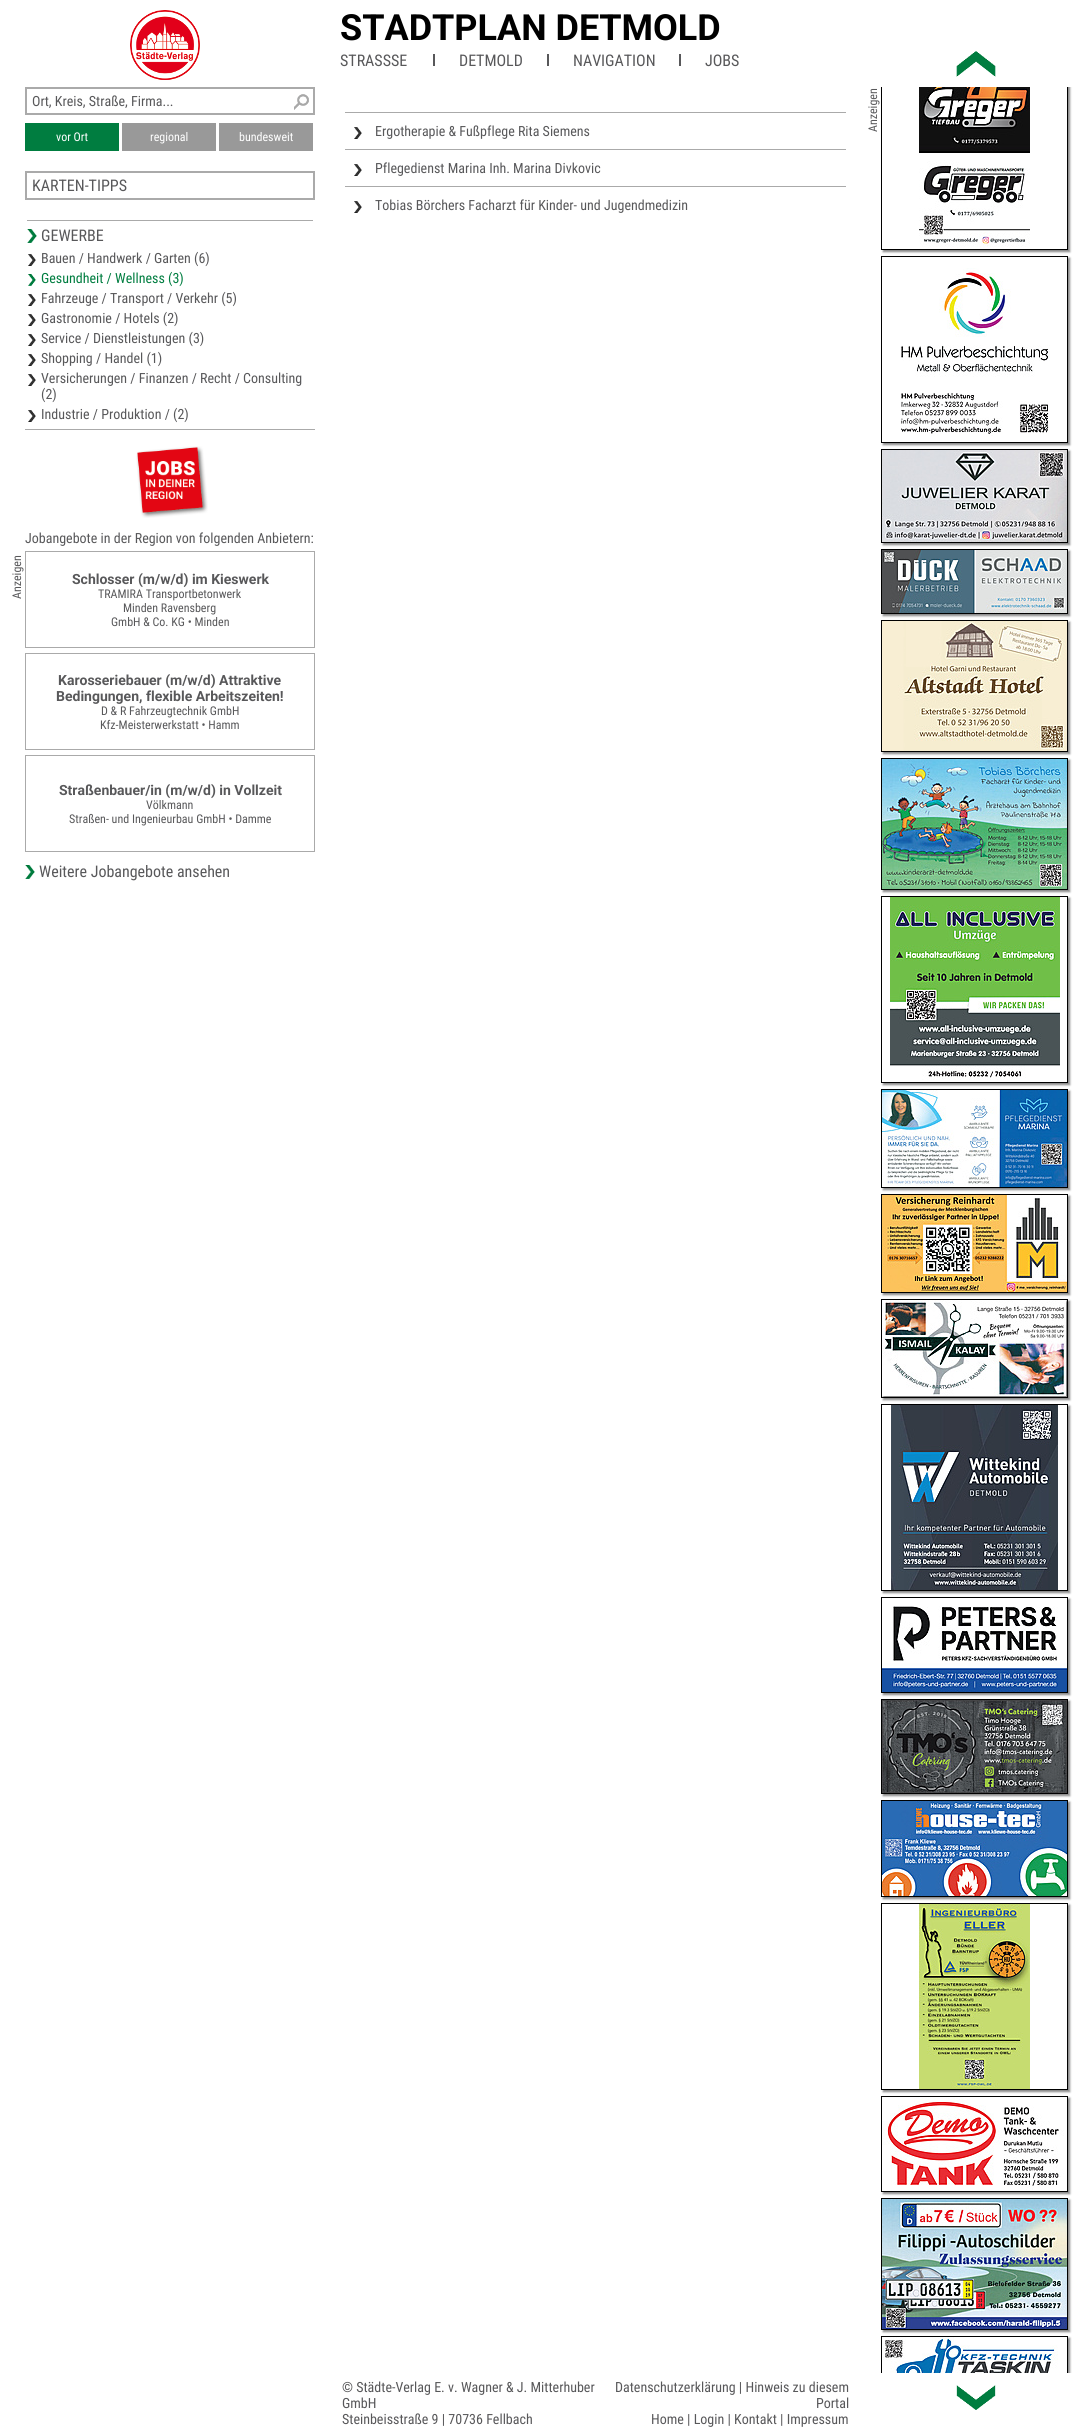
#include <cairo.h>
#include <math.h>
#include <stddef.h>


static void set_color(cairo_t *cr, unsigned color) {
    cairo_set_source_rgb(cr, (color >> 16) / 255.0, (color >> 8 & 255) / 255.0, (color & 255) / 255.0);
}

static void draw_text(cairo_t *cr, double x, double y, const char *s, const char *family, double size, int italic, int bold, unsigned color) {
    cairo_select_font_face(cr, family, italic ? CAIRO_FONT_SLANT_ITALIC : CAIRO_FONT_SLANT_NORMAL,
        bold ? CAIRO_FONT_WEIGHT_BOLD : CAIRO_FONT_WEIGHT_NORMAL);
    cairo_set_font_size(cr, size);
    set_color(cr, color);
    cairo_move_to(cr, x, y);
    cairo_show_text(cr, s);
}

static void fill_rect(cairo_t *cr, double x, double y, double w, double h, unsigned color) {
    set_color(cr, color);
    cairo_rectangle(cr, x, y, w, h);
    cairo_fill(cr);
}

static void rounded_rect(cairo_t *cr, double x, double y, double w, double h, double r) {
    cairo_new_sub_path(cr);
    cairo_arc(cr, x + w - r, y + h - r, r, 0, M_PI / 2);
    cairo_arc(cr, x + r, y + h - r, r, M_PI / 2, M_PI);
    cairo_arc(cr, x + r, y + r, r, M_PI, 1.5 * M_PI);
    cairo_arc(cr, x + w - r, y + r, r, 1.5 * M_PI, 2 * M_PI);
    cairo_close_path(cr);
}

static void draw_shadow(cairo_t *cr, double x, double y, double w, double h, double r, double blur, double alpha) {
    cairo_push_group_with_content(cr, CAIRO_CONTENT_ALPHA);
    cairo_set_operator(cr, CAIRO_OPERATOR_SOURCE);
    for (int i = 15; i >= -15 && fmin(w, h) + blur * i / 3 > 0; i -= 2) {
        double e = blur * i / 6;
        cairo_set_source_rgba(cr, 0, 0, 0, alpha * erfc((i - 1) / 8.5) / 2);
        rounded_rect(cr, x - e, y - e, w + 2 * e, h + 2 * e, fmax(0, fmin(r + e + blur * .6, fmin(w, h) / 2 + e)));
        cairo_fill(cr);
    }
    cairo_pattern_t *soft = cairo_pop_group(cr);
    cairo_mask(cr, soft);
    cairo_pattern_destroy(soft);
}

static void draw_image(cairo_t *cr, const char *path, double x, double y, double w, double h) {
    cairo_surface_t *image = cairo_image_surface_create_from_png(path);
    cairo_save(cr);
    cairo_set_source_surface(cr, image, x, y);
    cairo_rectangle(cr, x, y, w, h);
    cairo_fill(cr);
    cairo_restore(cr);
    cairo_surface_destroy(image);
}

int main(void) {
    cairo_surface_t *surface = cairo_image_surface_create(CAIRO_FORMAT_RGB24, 1076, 2429);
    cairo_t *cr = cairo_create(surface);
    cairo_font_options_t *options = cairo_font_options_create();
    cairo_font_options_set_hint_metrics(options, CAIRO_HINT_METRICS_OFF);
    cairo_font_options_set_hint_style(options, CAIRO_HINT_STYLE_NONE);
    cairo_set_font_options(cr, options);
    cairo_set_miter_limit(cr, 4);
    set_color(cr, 0xFFFFFF);
    cairo_paint(cr);
    draw_image(cr, "assets/img1.png", 130, 10, 70, 70);
    draw_text(cr, 340, 40, "STADTPLAN DETMOLD", "Roboto", 36, 0, 1, 0x000000);
    draw_text(cr, 340, 66, "STRASSSE", "Roboto Condensed", 16, 0, 0, 0x58585A);
    fill_rect(cr, 433, 54, 2, 12, 0x58585A);
    draw_text(cr, 459, 66, "DETMOLD", "Roboto Condensed", 16, 0, 0, 0x58585A);
    fill_rect(cr, 547, 54, 2, 12, 0x58585A);
    draw_text(cr, 573, 66, "NAVIGATION", "Roboto Condensed", 16, 0, 0, 0x58585A);
    fill_rect(cr, 679, 54, 2, 12, 0x58585A);
    draw_text(cr, 705, 66, "JOBS", "Roboto Condensed", 16, 0, 0, 0x58585A);
    draw_image(cr, "assets/img2.png", 294, 94, 15, 16);
    cairo_rectangle(cr, 26, 88, 288, 26);
    set_color(cr, 0xAAAAAA);
    cairo_stroke(cr);
    draw_text(cr, 32, 106, "Ort, Kreis, Straße, Firma...", "Roboto Condensed", 14, 0, 0, 0x58585A);
    fill_rect(cr, 25, 123, 94, 28, 0x007D40);
    draw_text(cr, 56, 141, "vor Ort", "Roboto Condensed", 12, 0, 0, 0xFFFFFF);
    fill_rect(cr, 122, 123, 94, 28, 0x999999);
    draw_text(cr, 150, 141, "regional", "Roboto Condensed", 12, 0, 0, 0xFFFFFF);
    fill_rect(cr, 219, 123, 94, 28, 0x999999);
    draw_text(cr, 239, 141, "bundesweit", "Roboto Condensed", 12, 0, 0, 0xFFFFFF);
    cairo_rectangle(cr, 26, 172, 288, 27);
    set_color(cr, 0xAAAAAA);
    cairo_stroke(cr);
    draw_text(cr, 32, 191, "KARTEN-TIPPS", "Roboto Condensed", 16, 0, 0, 0x58585A);
    draw_image(cr, "assets/img3.png", 27, 229, 10, 14);
    fill_rect(cr, 27, 220, 286, 1, 0xAAAAAA);
    draw_text(cr, 41, 241, "GEWERBE", "Roboto Condensed", 16, 0, 0, 0x58585A);
    draw_image(cr, "assets/img4.png", 28, 254, 8, 12);
    draw_text(cr, 41, 263, "Bauen / Handwerk / Garten (6)", "Roboto Condensed", 14, 0, 0, 0x58585A);
    draw_image(cr, "assets/img5.png", 28, 274, 8, 12);
    draw_text(cr, 41, 283, "Gesundheit / Wellness (3)", "Roboto Condensed", 14, 0, 0, 0x007D40);
    draw_image(cr, "assets/img4.png", 28, 294, 8, 12);
    draw_text(cr, 41, 303, "Fahrzeuge / Transport / Verkehr (5)", "Roboto Condensed", 14, 0, 0, 0x58585A);
    draw_image(cr, "assets/img4.png", 28, 314, 8, 12);
    draw_text(cr, 41, 323, "Gastronomie / Hotels (2)", "Roboto Condensed", 14, 0, 0, 0x58585A);
    draw_image(cr, "assets/img4.png", 28, 334, 8, 12);
    draw_text(cr, 41, 343, "Service / Dienstleistungen (3)", "Roboto Condensed", 14, 0, 0, 0x58585A);
    draw_image(cr, "assets/img4.png", 28, 354, 8, 12);
    draw_text(cr, 41, 363, "Shopping / Handel (1)", "Roboto Condensed", 14, 0, 0, 0x58585A);
    draw_image(cr, "assets/img4.png", 28, 374, 8, 12);
    draw_text(cr, 41, 383, "Versicherungen / Finanzen / Recht / Consulting", "Roboto Condensed", 14, 0, 0, 0x58585A);
    draw_text(cr, 41, 399, "(2)", "Roboto Condensed", 14, 0, 0, 0x58585A);
    draw_image(cr, "assets/img4.png", 28, 410, 8, 12);
    draw_text(cr, 41, 419, "Industrie / Produktion / (2)", "Roboto Condensed", 14, 0, 0, 0x58585A);
    draw_text(cr, 25, 543, "Jobangebote in der Region von folgenden Anbietern:", "Roboto Condensed", 14, 0, 0, 0x58585A);
    draw_image(cr, "assets/img6.png", 136, 446, 72, 72);
    fill_rect(cr, 25, 429, 290, 1, 0xAAAAAA);
    cairo_save(cr);
    cairo_translate(cr, 21, 599);
    cairo_rotate(cr, -90 * M_PI / 180);
    draw_text(cr, 0, 0, "Anzeigen", "Roboto Condensed", 12, 0, 0, 0x58585A);
    cairo_restore(cr);
    cairo_rectangle(cr, 25.5, 551.5, 289, 96);
    set_color(cr, 0xAAAAAA);
    cairo_set_line_width(cr, 1);
    cairo_stroke(cr);
    draw_text(cr, 72, 584, "Schlosser (m/w/d) im Kieswerk", "Roboto", 14, 0, 1, 0x58585A);
    draw_text(cr, 98, 598, "TRAMIRA Transportbetonwerk", "Roboto Condensed", 12, 0, 0, 0x58585A);
    draw_text(cr, 123, 612, "Minden Ravensberg", "Roboto Condensed", 12, 0, 0, 0x58585A);
    draw_text(cr, 111, 626, "GmbH & Co. KG • Minden", "Roboto Condensed", 12, 0, 0, 0x58585A);
    cairo_rectangle(cr, 25.5, 653.5, 289, 96);
    set_color(cr, 0xAAAAAA);
    cairo_stroke(cr);
    draw_text(cr, 58, 685, "Karosseriebauer (m/w/d) Attraktive", "Roboto", 14, 0, 1, 0x58585A);
    draw_text(cr, 56, 701, "Bedingungen, flexible Arbeitszeiten!", "Roboto", 14, 0, 1, 0x58585A);
    draw_text(cr, 101, 715, "D & R Fahrzeugtechnik GmbH", "Roboto Condensed", 12, 0, 0, 0x58585A);
    draw_text(cr, 100, 729, "Kfz-Meisterwerkstatt • Hamm", "Roboto Condensed", 12, 0, 0, 0x58585A);
    cairo_rectangle(cr, 25.5, 755.5, 289, 96);
    set_color(cr, 0xAAAAAA);
    cairo_stroke(cr);
    draw_text(cr, 59, 795, "Straßenbauer/in (m/w/d) in Vollzeit", "Roboto", 14, 0, 1, 0x58585A);
    draw_text(cr, 146, 809, "Völkmann", "Roboto Condensed", 12, 0, 0, 0x58585A);
    draw_text(cr, 69, 823, "Straßen- und Ingenieurbau GmbH • Damme", "Roboto Condensed", 12, 0, 0, 0x58585A);
    draw_image(cr, "assets/img3.png", 25, 865, 10, 14);
    draw_text(cr, 39, 877, "Weitere Jobangebote ansehen", "Roboto Condensed", 16, 0, 0, 0x58585A);
    draw_image(cr, "assets/img4.png", 354, 127, 8, 12);
    fill_rect(cr, 345, 112, 501, 1, 0xAAAAAA);
    draw_text(cr, 375, 136, "Ergotherapie & Fußpflege Rita Siemens", "Roboto Condensed", 14, 0, 0, 0x58585A);
    draw_image(cr, "assets/img4.png", 354, 164, 8, 12);
    fill_rect(cr, 345, 149, 501, 1, 0xAAAAAA);
    draw_text(cr, 375, 173, "Pflegedienst Marina Inh. Marina Divkovic", "Roboto Condensed", 14, 0, 0, 0x58585A);
    draw_image(cr, "assets/img4.png", 354, 201, 8, 12);
    fill_rect(cr, 345, 186, 501, 1, 0xAAAAAA);
    draw_text(cr, 375, 210, "Tobias Börchers Facharzt für Kinder- und Jugendmedizin", "Roboto Condensed", 14, 0, 0, 0x58585A);
    draw_image(cr, "assets/img7.png", 956, 51, 40, 26);
    cairo_save(cr);
    cairo_rectangle(cr, 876, 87, 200, 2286);
    cairo_clip(cr);
    cairo_set_fill_rule(cr, CAIRO_FILL_RULE_EVEN_ODD);
    cairo_new_path(cr);
    cairo_move_to(cr, 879, 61);
    cairo_line_to(cr, 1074, 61);
    cairo_line_to(cr, 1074, 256);
    cairo_line_to(cr, 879, 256);
    cairo_close_path(cr);
    cairo_move_to(cr, 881, 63);
    cairo_line_to(cr, 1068, 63);
    cairo_line_to(cr, 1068, 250);
    cairo_line_to(cr, 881, 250);
    cairo_close_path(cr);
    cairo_clip(cr);
    set_color(cr, 0x888888);
    draw_shadow(cr, 883, 65, 187, 187, 0, 1, 1);
    cairo_restore(cr);
    cairo_save(cr);
    cairo_translate(cr, 877, 132);
    cairo_rotate(cr, -90 * M_PI / 180);
    draw_text(cr, 0, 0, "Anzeigen", "Roboto Condensed", 12, 0, 0, 0x58585A);
    cairo_restore(cr);
    cairo_save(cr);
    cairo_rectangle(cr, 876, 87, 200, 2286);
    cairo_clip(cr);
    cairo_rectangle(cr, 881.5, 63.5, 186, 186);
    set_color(cr, 0x000000);
    cairo_stroke(cr);
    cairo_restore(cr);
    draw_image(cr, "assets/img8.png", 919, 87, 111, 161);
    cairo_save(cr);
    cairo_set_fill_rule(cr, CAIRO_FILL_RULE_EVEN_ODD);
    cairo_new_path(cr);
    cairo_move_to(cr, 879, 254);
    cairo_line_to(cr, 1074, 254);
    cairo_line_to(cr, 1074, 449);
    cairo_line_to(cr, 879, 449);
    cairo_close_path(cr);
    cairo_move_to(cr, 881, 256);
    cairo_line_to(cr, 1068, 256);
    cairo_line_to(cr, 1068, 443);
    cairo_line_to(cr, 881, 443);
    cairo_close_path(cr);
    cairo_clip(cr);
    set_color(cr, 0x888888);
    draw_shadow(cr, 883, 258, 187, 187, 0, 1, 1);
    cairo_restore(cr);
    cairo_rectangle(cr, 881.5, 256.5, 186, 186);
    set_color(cr, 0x000000);
    cairo_stroke(cr);
    draw_image(cr, "assets/img9.png", 900, 268, 150, 168);
    set_color(cr, 0x888888);
    draw_shadow(cr, 883, 451, 187, 94, 0, 1, 1);
    cairo_rectangle(cr, 881.5, 449.5, 186, 93);
    set_color(cr, 0x000000);
    cairo_stroke(cr);
    draw_image(cr, "assets/img10.png", 882, 450, 185, 92);
    set_color(cr, 0x888888);
    draw_shadow(cr, 883, 551, 187, 65, 0, 1, 1);
    cairo_rectangle(cr, 881.5, 549.5, 186, 64);
    set_color(cr, 0x000000);
    cairo_stroke(cr);
    draw_image(cr, "assets/img11.png", 882, 550, 185, 63);
    set_color(cr, 0x888888);
    draw_shadow(cr, 883, 622, 187, 132, 0, 1, 1);
    cairo_rectangle(cr, 881.5, 620.5, 186, 131);
    set_color(cr, 0x000000);
    cairo_stroke(cr);
    draw_image(cr, "assets/img12.png", 882, 621, 185, 130);
    set_color(cr, 0x888888);
    draw_shadow(cr, 883, 760, 187, 132, 0, 1, 1);
    cairo_rectangle(cr, 881.5, 758.5, 186, 131);
    set_color(cr, 0x000000);
    cairo_stroke(cr);
    draw_image(cr, "assets/img13.png", 882, 759, 185, 130);
    cairo_save(cr);
    cairo_set_fill_rule(cr, CAIRO_FILL_RULE_EVEN_ODD);
    cairo_new_path(cr);
    cairo_move_to(cr, 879, 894);
    cairo_line_to(cr, 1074, 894);
    cairo_line_to(cr, 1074, 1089);
    cairo_line_to(cr, 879, 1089);
    cairo_close_path(cr);
    cairo_move_to(cr, 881, 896);
    cairo_line_to(cr, 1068, 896);
    cairo_line_to(cr, 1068, 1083);
    cairo_line_to(cr, 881, 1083);
    cairo_close_path(cr);
    cairo_clip(cr);
    set_color(cr, 0x888888);
    draw_shadow(cr, 883, 898, 187, 187, 0, 1, 1);
    cairo_restore(cr);
    cairo_rectangle(cr, 881.5, 896.5, 186, 186);
    cairo_stroke(cr);
    draw_image(cr, "assets/img14.png", 890, 897, 170, 183);
    set_color(cr, 0x888888);
    draw_shadow(cr, 883, 1091, 187, 99, 0, 1, 1);
    cairo_rectangle(cr, 881.5, 1089.5, 186, 98);
    set_color(cr, 0x000000);
    cairo_stroke(cr);
    draw_image(cr, "assets/img15.png", 882, 1090, 185, 97);
    set_color(cr, 0x888888);
    draw_shadow(cr, 883, 1196, 187, 99, 0, 1, 1);
    cairo_rectangle(cr, 881.5, 1194.5, 186, 98);
    set_color(cr, 0x000000);
    cairo_stroke(cr);
    draw_image(cr, "assets/img16.png", 882, 1195, 185, 97);
    set_color(cr, 0x888888);
    draw_shadow(cr, 883, 1301, 187, 99, 0, 1, 1);
    cairo_rectangle(cr, 881.5, 1299.5, 186, 98);
    set_color(cr, 0x000000);
    cairo_stroke(cr);
    draw_image(cr, "assets/img17.png", 882, 1300, 184, 96);
    cairo_save(cr);
    cairo_set_fill_rule(cr, CAIRO_FILL_RULE_EVEN_ODD);
    cairo_new_path(cr);
    cairo_move_to(cr, 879, 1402);
    cairo_line_to(cr, 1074, 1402);
    cairo_line_to(cr, 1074, 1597);
    cairo_line_to(cr, 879, 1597);
    cairo_close_path(cr);
    cairo_move_to(cr, 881, 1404);
    cairo_line_to(cr, 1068, 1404);
    cairo_line_to(cr, 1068, 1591);
    cairo_line_to(cr, 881, 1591);
    cairo_close_path(cr);
    cairo_clip(cr);
    set_color(cr, 0x888888);
    draw_shadow(cr, 883, 1406, 187, 187, 0, 1, 1);
    cairo_restore(cr);
    cairo_rectangle(cr, 881.5, 1404.5, 186, 186);
    cairo_stroke(cr);
    draw_image(cr, "assets/img18.png", 891, 1405, 167, 185);
    cairo_save(cr);
    cairo_set_fill_rule(cr, CAIRO_FILL_RULE_EVEN_ODD);
    cairo_new_path(cr);
    cairo_move_to(cr, 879, 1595);
    cairo_line_to(cr, 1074, 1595);
    cairo_line_to(cr, 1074, 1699);
    cairo_line_to(cr, 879, 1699);
    cairo_close_path(cr);
    cairo_move_to(cr, 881, 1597);
    cairo_line_to(cr, 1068, 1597);
    cairo_line_to(cr, 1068, 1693);
    cairo_line_to(cr, 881, 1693);
    cairo_close_path(cr);
    cairo_clip(cr);
    set_color(cr, 0x888888);
    draw_shadow(cr, 883, 1599, 187, 96, 0, 1, 1);
    cairo_restore(cr);
    cairo_rectangle(cr, 881.5, 1597.5, 186, 95);
    cairo_stroke(cr);
    draw_image(cr, "assets/img19.png", 882, 1606, 185, 86);
    set_color(cr, 0x888888);
    draw_shadow(cr, 883, 1701, 187, 95, 0, 1, 1);
    cairo_rectangle(cr, 881.5, 1699.5, 186, 94);
    set_color(cr, 0x000000);
    cairo_stroke(cr);
    draw_image(cr, "assets/img20.png", 882, 1700, 185, 93);
    set_color(cr, 0x888888);
    draw_shadow(cr, 883, 1802, 187, 97, 0, 1, 1);
    cairo_rectangle(cr, 881.5, 1800.5, 186, 96);
    set_color(cr, 0x000000);
    cairo_stroke(cr);
    draw_image(cr, "assets/img21.png", 882, 1801, 185, 95);
    cairo_save(cr);
    cairo_set_fill_rule(cr, CAIRO_FILL_RULE_EVEN_ODD);
    cairo_new_path(cr);
    cairo_move_to(cr, 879, 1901);
    cairo_line_to(cr, 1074, 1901);
    cairo_line_to(cr, 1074, 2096);
    cairo_line_to(cr, 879, 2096);
    cairo_close_path(cr);
    cairo_move_to(cr, 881, 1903);
    cairo_line_to(cr, 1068, 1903);
    cairo_line_to(cr, 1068, 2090);
    cairo_line_to(cr, 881, 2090);
    cairo_close_path(cr);
    cairo_clip(cr);
    set_color(cr, 0x888888);
    draw_shadow(cr, 883, 1905, 187, 187, 0, 1, 1);
    cairo_restore(cr);
    cairo_rectangle(cr, 881.5, 1903.5, 186, 186);
    cairo_stroke(cr);
    draw_image(cr, "assets/img22.png", 919, 1904, 111, 185);
    cairo_save(cr);
    cairo_set_fill_rule(cr, CAIRO_FILL_RULE_EVEN_ODD);
    cairo_new_path(cr);
    cairo_move_to(cr, 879, 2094);
    cairo_line_to(cr, 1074, 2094);
    cairo_line_to(cr, 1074, 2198);
    cairo_line_to(cr, 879, 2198);
    cairo_close_path(cr);
    cairo_move_to(cr, 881, 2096);
    cairo_line_to(cr, 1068, 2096);
    cairo_line_to(cr, 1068, 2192);
    cairo_line_to(cr, 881, 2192);
    cairo_close_path(cr);
    cairo_clip(cr);
    set_color(cr, 0x888888);
    draw_shadow(cr, 883, 2098, 187, 96, 0, 1, 1);
    cairo_restore(cr);
    cairo_rectangle(cr, 881.5, 2096.5, 186, 95);
    cairo_stroke(cr);
    draw_image(cr, "assets/img23.png", 882, 2097, 182, 93);
    set_color(cr, 0x888888);
    draw_shadow(cr, 883, 2200, 187, 132, 0, 1, 1);
    cairo_rectangle(cr, 881.5, 2198.5, 186, 131);
    set_color(cr, 0x000000);
    cairo_stroke(cr);
    draw_image(cr, "assets/img24.png", 882, 2199, 185, 130);
    draw_image(cr, "assets/img26.png", 956, 2385, 40, 25);
    cairo_save(cr);
    cairo_rectangle(cr, 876, 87, 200, 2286);
    cairo_clip(cr);
    cairo_rectangle(cr, 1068, 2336, 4, 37);
    cairo_clip(cr);
    set_color(cr, 0x888888);
    draw_shadow(cr, 883, 2338, 187, 65, 0, 1, 1);
    cairo_restore(cr);
    cairo_save(cr);
    cairo_rectangle(cr, 876, 87, 200, 2286);
    cairo_clip(cr);
    cairo_rectangle(cr, 881.5, 2336.5, 186, 64);
    cairo_stroke(cr);
    cairo_restore(cr);
    draw_image(cr, "assets/img25.png", 883, 2337, 175, 36);
    draw_text(cr, 342, 2392, "© Städte-Verlag E. v. Wagner & J. Mitterhuber", "Roboto Condensed", 14, 0, 0, 0x58585A);
    draw_text(cr, 342, 2408, "GmbH", "Roboto Condensed", 14, 0, 0, 0x58585A);
    draw_text(cr, 342, 2424, "Steinbeisstraße 9 | 70736 Fellbach", "Roboto Condensed", 14, 0, 0, 0x58585A);
    draw_text(cr, 615, 2392, "Datenschutzerklärung | Hinweis zu diesem", "Roboto Condensed", 14, 0, 0, 0x58585A);
    draw_text(cr, 816, 2408, "Portal", "Roboto Condensed", 14, 0, 0, 0x58585A);
    draw_text(cr, 651, 2424, "Home | Login | Kontakt | Impressum", "Roboto Condensed", 14, 0, 0, 0x58585A);
    cairo_surface_write_to_png(surface, "output.png");
    cairo_font_options_destroy(options);
    cairo_destroy(cr);
    cairo_surface_destroy(surface);
    return 0;
}
